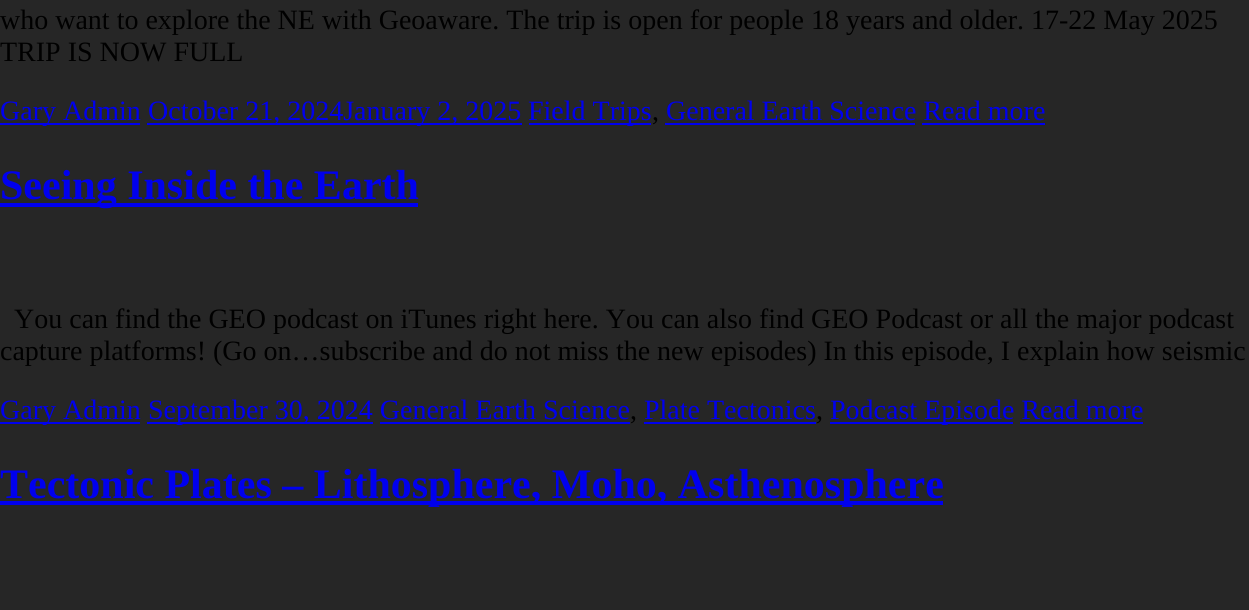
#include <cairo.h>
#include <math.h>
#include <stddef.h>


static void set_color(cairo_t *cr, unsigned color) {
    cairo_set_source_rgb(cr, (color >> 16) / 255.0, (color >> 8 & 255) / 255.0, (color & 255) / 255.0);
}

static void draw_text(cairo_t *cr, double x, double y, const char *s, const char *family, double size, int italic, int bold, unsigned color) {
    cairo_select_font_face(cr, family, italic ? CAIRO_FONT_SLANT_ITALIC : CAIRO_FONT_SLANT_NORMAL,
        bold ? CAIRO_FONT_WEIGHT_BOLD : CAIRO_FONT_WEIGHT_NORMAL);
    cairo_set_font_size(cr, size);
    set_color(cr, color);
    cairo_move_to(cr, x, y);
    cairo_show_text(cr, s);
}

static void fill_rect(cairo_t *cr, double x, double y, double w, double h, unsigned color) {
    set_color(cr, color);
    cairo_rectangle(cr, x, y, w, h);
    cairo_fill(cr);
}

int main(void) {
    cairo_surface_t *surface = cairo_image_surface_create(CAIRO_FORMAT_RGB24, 1249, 610);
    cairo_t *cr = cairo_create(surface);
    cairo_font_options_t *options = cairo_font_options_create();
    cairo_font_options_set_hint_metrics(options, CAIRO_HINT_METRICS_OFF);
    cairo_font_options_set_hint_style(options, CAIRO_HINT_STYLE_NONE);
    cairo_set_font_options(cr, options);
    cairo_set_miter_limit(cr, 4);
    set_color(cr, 0x262626);
    cairo_paint(cr);
    draw_text(cr, 0, 29, "who want to explore the NE with Geoaware. The trip is open for people 18 years and older. 17-22 May 2025", "Liberation Serif", 28, 0, 0, 0x000000);
    draw_text(cr, 0, 61, "TRIP IS NOW FULL", "Liberation Serif", 28, 0, 0, 0x000000);
    fill_rect(cr, 0, 123, 140, 2, 0x0000EE);
    draw_text(cr, 0, 120, "Gary Admin", "Liberation Serif", 28, 0, 0, 0x0000EE);
    fill_rect(cr, 147, 123, 375, 2, 0x0000EE);
    draw_text(cr, 148, 120, "October 21, 2024January 2, 2025", "Liberation Serif", 28, 0, 0, 0x0000EE);
    fill_rect(cr, 529, 123, 122, 2, 0x0000EE);
    draw_text(cr, 528, 120, "Field Trips", "Liberation Serif", 28, 0, 0, 0x0000EE);
    draw_text(cr, 652, 120, ",", "Liberation Serif", 28, 0, 0, 0x000000);
    fill_rect(cr, 665, 123, 250, 2, 0x0000EE);
    draw_text(cr, 666, 120, "General Earth Science Read more", "Liberation Serif", 28, 0, 0, 0x0000EE);
    fill_rect(cr, 922, 123, 123, 2, 0x0000EE);
    fill_rect(cr, 0, 203, 418, 4, 0x0000EE);
    draw_text(cr, 0, 199, "Seeing Inside the Earth", "Liberation Serif", 42, 0, 1, 0x0000EE);
    draw_text(cr, 14, 328, "You can find the GEO podcast on iTunes right here. You can also find GEO Podcast or all the major podcast", "Liberation Serif", 28, 0, 0, 0x000000);
    draw_text(cr, 0, 360, "capture platforms! (Go on…subscribe and do not miss the new episodes) In this episode, I explain how seismic", "Liberation Serif", 28, 0, 0, 0x000000);
    fill_rect(cr, 0, 422, 140, 2, 0x0000EE);
    draw_text(cr, 0, 419, "Gary Admin", "Liberation Serif", 28, 0, 0, 0x0000EE);
    fill_rect(cr, 147, 422, 226, 2, 0x0000EE);
    draw_text(cr, 148, 419, "September 30, 2024 General Earth Science", "Liberation Serif", 28, 0, 0, 0x0000EE);
    draw_text(cr, 630, 419, ",", "Liberation Serif", 28, 0, 0, 0x000000);
    fill_rect(cr, 380, 422, 250, 2, 0x0000EE);
    draw_text(cr, 644, 419, "Plate Tectonics", "Liberation Serif", 28, 0, 0, 0x0000EE);
    draw_text(cr, 816, 419, ",", "Liberation Serif", 28, 0, 0, 0x000000);
    fill_rect(cr, 644, 422, 172, 2, 0x0000EE);
    fill_rect(cr, 830, 422, 183, 2, 0x0000EE);
    draw_text(cr, 830, 419, "Podcast Episode Read more", "Liberation Serif", 28, 0, 0, 0x0000EE);
    fill_rect(cr, 1020, 422, 123, 2, 0x0000EE);
    fill_rect(cr, 0, 501, 943, 4, 0x0000EE);
    draw_text(cr, 0, 498, "Tectonic Plates – Lithosphere, Moho, Asthenosphere", "Liberation Serif", 42, 0, 1, 0x0000EE);
    cairo_surface_write_to_png(surface, "output.png");
    cairo_font_options_destroy(options);
    cairo_destroy(cr);
    cairo_surface_destroy(surface);
    return 0;
}
